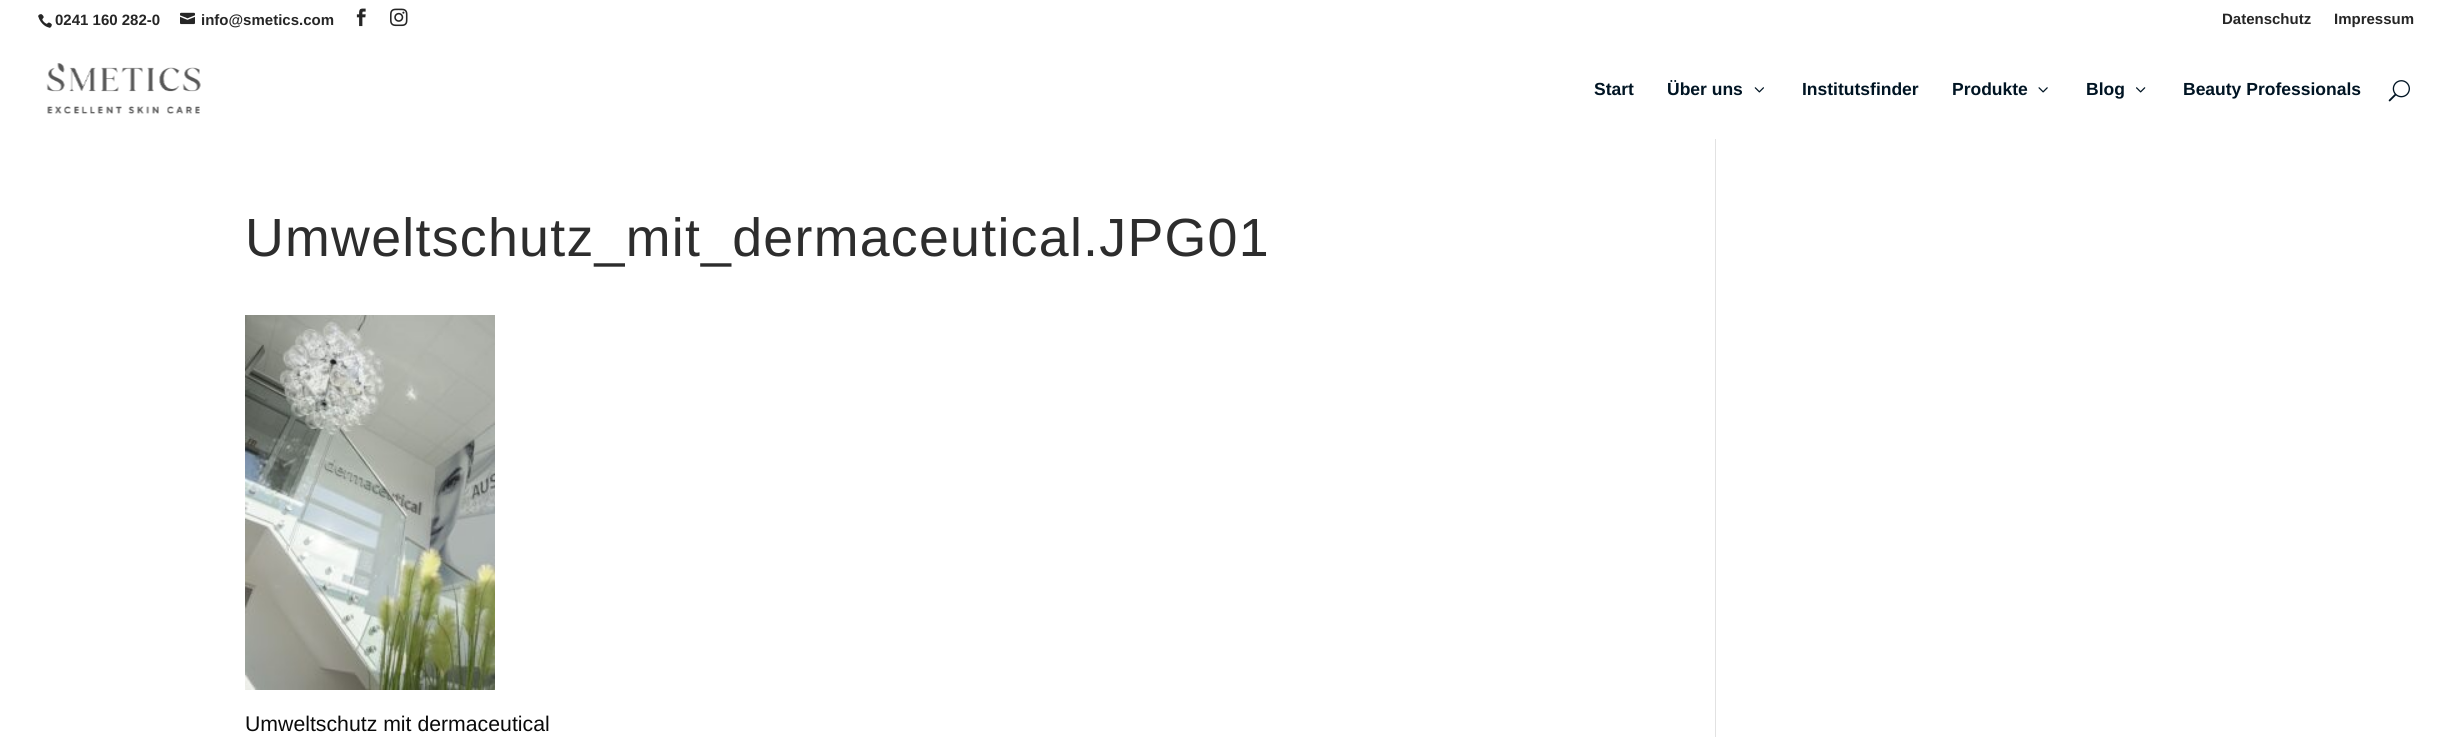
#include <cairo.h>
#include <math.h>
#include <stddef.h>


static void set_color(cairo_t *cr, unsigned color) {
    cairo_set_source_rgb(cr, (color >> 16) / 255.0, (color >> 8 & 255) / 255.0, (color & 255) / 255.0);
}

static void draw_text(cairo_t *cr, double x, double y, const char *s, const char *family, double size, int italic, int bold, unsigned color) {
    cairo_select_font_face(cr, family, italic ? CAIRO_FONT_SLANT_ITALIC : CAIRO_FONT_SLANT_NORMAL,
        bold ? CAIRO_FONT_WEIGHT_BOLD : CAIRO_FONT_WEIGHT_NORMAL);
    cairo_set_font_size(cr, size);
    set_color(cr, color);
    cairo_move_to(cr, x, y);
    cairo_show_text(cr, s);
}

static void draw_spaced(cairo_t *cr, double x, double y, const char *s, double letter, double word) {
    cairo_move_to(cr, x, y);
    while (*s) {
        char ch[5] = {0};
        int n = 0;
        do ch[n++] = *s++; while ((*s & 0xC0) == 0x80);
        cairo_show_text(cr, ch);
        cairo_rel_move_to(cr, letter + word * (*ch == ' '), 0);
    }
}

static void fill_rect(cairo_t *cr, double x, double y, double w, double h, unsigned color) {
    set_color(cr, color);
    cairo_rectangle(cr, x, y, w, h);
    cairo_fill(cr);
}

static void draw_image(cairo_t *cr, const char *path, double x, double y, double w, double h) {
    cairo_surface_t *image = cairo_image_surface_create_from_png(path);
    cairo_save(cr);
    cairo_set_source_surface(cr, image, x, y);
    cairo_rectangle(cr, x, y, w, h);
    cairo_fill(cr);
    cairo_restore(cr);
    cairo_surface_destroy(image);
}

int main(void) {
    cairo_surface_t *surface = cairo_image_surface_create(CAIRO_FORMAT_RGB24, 2451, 737);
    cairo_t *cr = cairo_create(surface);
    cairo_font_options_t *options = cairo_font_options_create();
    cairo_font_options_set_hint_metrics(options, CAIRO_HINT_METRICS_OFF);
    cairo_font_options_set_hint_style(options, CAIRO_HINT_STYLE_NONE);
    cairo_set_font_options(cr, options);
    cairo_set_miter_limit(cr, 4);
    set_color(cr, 0xFFFFFF);
    cairo_paint(cr);
    draw_image(cr, "assets/img1.png", 38, 14, 14, 14);
    draw_text(cr, 55, 25, "0241 160 282-0", "Liberation Sans", 15, 0, 1, 0x262626);
    draw_image(cr, "assets/img2.png", 180, 12, 15, 13);
    draw_text(cr, 201, 25, "info@smetics.com", "Liberation Sans", 15, 0, 1, 0x262626);
    draw_image(cr, "assets/img3.png", 356, 8, 10, 19);
    draw_image(cr, "assets/img4.png", 390, 8, 18, 19);
    draw_text(cr, 2222, 24, "Datenschutz", "Liberation Sans", 15, 0, 1, 0x262626);
    draw_text(cr, 2334, 24, "Impressum", "Liberation Sans", 15, 0, 1, 0x262626);
    draw_image(cr, "assets/img5.png", 46, 63, 155, 51);
    draw_text(cr, 1594, 95, "Start", "Liberation Sans", 17.5, 0, 1, 0x001423);
    draw_text(cr, 1667, 95, "Über uns", "Liberation Sans", 17.5, 0, 1, 0x001423);
    draw_image(cr, "assets/img6.png", 1754, 87, 10, 6);
    draw_text(cr, 1802, 95, "Institutsfinder", "Liberation Sans", 17.5, 0, 1, 0x001423);
    draw_text(cr, 1952, 95, "Produkte", "Liberation Sans", 17.5, 0, 1, 0x001423);
    draw_image(cr, "assets/img7.png", 2038, 87, 10, 6);
    draw_text(cr, 2086, 95, "Blog", "Liberation Sans", 17.5, 0, 1, 0x001423);
    draw_image(cr, "assets/img8.png", 2136, 87, 10, 6);
    draw_text(cr, 2183, 95, "Beauty Professionals", "Liberation Sans", 17.5, 0, 1, 0x001423);
    draw_image(cr, "assets/img9.png", 2388, 80, 22, 22);
    cairo_select_font_face(cr, "Liberation Sans", CAIRO_FONT_SLANT_NORMAL, CAIRO_FONT_WEIGHT_NORMAL);
    cairo_set_font_size(cr, 53.75);
    set_color(cr, 0x2D2D2D);
    draw_spaced(cr, 245, 256, "Umweltschutz_mit_dermaceutical.JPG01", 1.25, 0);
    draw_image(cr, "assets/img10.png", 245, 315, 250, 375);
    draw_text(cr, 245, 731, "Umweltschutz mit dermaceutical", "Liberation Sans", 21.25, 0, 0, 0x0A0A0A);
    fill_rect(cr, 1715, 139, 1, 598, 0xE2E2E2);
    cairo_surface_write_to_png(surface, "output.png");
    cairo_font_options_destroy(options);
    cairo_destroy(cr);
    cairo_surface_destroy(surface);
    return 0;
}
